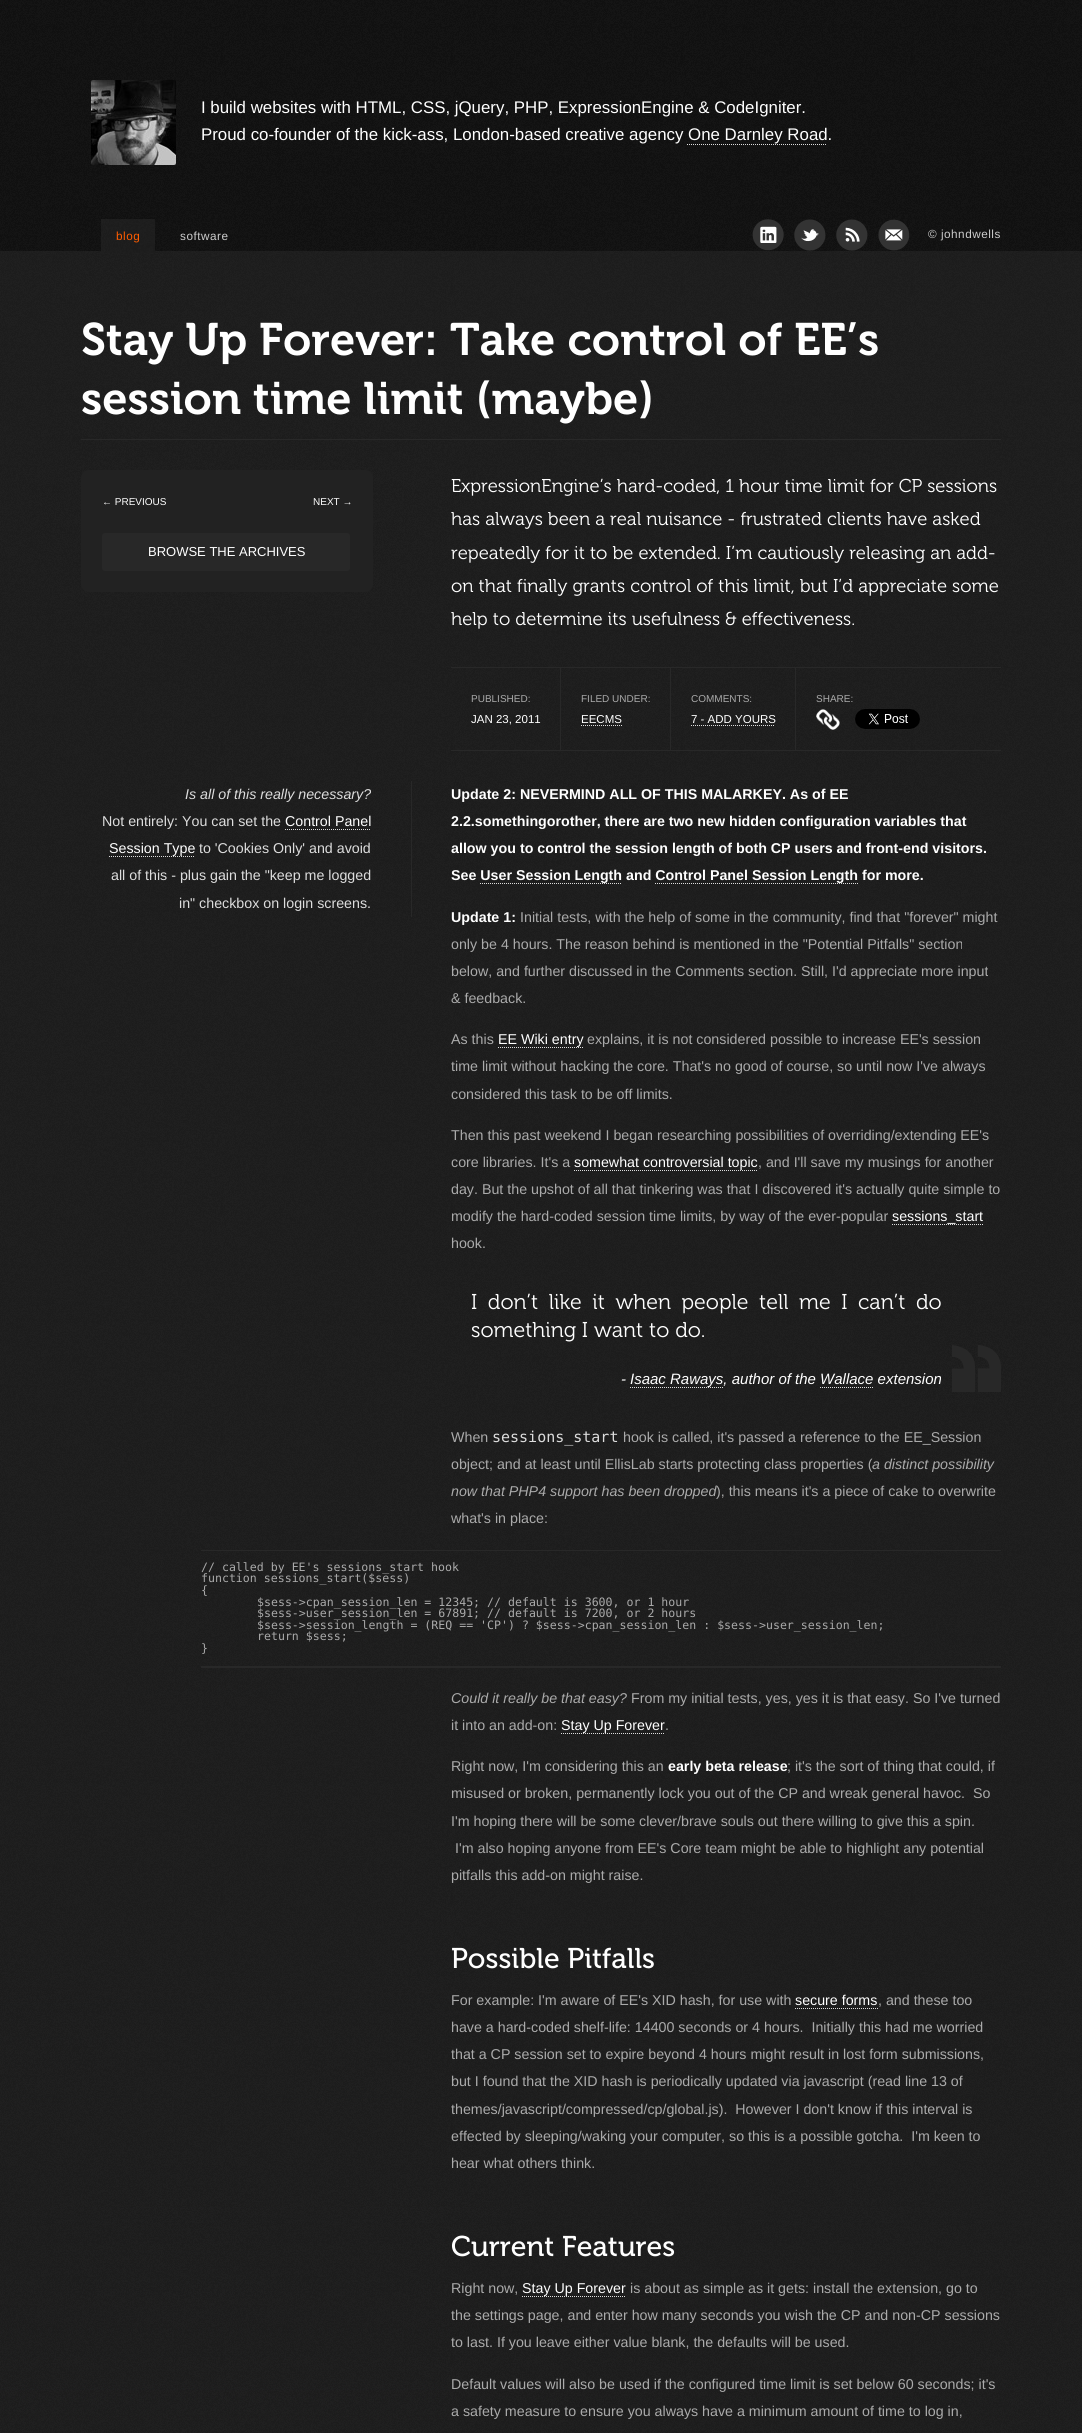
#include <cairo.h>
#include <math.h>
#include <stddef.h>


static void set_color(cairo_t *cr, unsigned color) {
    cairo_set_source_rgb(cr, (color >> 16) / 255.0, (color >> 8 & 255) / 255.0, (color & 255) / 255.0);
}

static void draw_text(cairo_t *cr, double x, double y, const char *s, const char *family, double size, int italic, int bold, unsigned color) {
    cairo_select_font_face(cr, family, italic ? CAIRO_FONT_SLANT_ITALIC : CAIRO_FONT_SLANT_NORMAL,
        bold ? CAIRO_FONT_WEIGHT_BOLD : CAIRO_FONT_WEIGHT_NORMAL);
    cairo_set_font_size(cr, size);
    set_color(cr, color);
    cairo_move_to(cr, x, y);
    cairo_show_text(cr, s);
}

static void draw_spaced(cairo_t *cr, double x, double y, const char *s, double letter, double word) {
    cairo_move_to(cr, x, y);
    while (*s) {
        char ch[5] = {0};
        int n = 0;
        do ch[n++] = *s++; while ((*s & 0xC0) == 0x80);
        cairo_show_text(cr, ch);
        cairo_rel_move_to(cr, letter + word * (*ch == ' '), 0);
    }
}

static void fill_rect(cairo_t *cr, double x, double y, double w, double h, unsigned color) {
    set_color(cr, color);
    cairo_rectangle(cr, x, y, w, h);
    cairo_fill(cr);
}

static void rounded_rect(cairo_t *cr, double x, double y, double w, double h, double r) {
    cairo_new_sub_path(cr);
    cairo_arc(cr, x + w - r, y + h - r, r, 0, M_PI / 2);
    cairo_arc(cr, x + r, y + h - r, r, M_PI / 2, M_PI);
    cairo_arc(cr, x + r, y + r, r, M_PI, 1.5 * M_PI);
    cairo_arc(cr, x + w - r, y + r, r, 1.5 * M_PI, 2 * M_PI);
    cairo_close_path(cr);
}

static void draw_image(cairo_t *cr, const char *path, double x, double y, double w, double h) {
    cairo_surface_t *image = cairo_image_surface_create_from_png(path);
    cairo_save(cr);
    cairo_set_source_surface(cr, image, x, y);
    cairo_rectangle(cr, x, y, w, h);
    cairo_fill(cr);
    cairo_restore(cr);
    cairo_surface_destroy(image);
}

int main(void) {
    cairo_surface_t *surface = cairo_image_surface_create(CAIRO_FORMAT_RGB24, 1082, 2433);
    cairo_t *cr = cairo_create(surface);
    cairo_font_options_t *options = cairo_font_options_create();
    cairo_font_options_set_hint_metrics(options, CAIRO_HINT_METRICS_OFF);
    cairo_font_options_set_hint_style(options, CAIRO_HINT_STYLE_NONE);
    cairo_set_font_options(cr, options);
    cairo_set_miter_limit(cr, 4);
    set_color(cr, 0xFFFFFF);
    cairo_paint(cr);
    draw_image(cr, "assets/img1.png", 0, 251, 1082, 2182);
    draw_image(cr, "assets/img2.png", 0, 0, 1082, 251);
    draw_image(cr, "assets/img3.png", 91, 80, 85, 85);
    draw_text(cr, 201, 113, "I build websites with HTML, CSS, jQuery, PHP, ExpressionEngine & CodeIgniter.", "Liberation Sans", 16.85, 0, 0, 0xFFFFFF);
    draw_text(cr, 201, 140, "Proud co-founder of the kick-ass, London-based creative agency One Darnley Road.", "Liberation Sans", 16.85, 0, 0, 0xFFFFFF);
    cairo_new_path(cr);
    cairo_move_to(cr, 687, 144.5);
    cairo_line_to(cr, 827, 144.5);
    set_color(cr, 0xDDDDDD);
    cairo_set_line_width(cr, 1);
    cairo_set_dash(cr, (double[]){1, 1}, 2, 0);
    cairo_stroke(cr);
    draw_image(cr, "assets/img4.png", 101, 219, 54, 34);
    cairo_set_font_size(cr, 11.75);
    set_color(cr, 0xFF5C00);
    draw_spaced(cr, 116, 240, "blog", 0.5, 0);
    set_color(cr, 0xCCCCCC);
    draw_spaced(cr, 180, 240, "software", 0.5, 0);
    draw_image(cr, "assets/img5.png", 752, 219, 32, 32);
    draw_image(cr, "assets/img6.png", 794, 219, 32, 32);
    draw_image(cr, "assets/img7.png", 836, 219, 32, 32);
    draw_image(cr, "assets/img8.png", 878, 219, 32, 32);
    draw_spaced(cr, 928, 238, "© johndwells", 0.5, 0);
    fill_rect(cr, 81, 439, 920, 1, 0x282828);
    draw_text(cr, 81, 355, "Stay Up Forever: Take control of EE’s", "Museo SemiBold", 45.4, 0, 0, 0xFFFFFF);
    draw_text(cr, 81, 414, "session time limit (maybe)", "Museo SemiBold", 45.4, 0, 0, 0xFFFFFF);
    draw_text(cr, 451, 492, "ExpressionEngine’s hard-coded, 1 hour time limit for CP sessions", "Museo Light", 18.5, 0, 0, 0xFFFFFF);
    draw_text(cr, 451, 525, "has always been a real nuisance - frustrated clients have asked", "Museo Light", 18.5, 0, 0, 0xFFFFFF);
    draw_text(cr, 451, 559, "repeatedly for it to be extended. I’m cautiously releasing an add-", "Museo Light", 18.5, 0, 0, 0xFFFFFF);
    draw_text(cr, 451, 592, "on that finally grants control of this limit, but I’d appreciate some", "Museo Light", 18.5, 0, 0, 0xFFFFFF);
    draw_text(cr, 451, 625, "help to determine its usefulness & effectiveness.", "Museo Light", 18.5, 0, 0, 0xFFFFFF);
    fill_rect(cr, 451, 667, 550, 1, 0x282828);
    fill_rect(cr, 451, 750, 550, 1, 0x282828);
    fill_rect(cr, 560, 668, 1, 82, 0x282828);
    draw_text(cr, 471, 702, "PUBLISHED:", "Liberation Sans", 10, 0, 0, 0xAAAAAA);
    draw_text(cr, 471, 723, "JAN 23, 2011", "Liberation Sans", 11.5, 0, 0, 0xFFFFFF);
    fill_rect(cr, 670, 668, 1, 82, 0x282828);
    draw_text(cr, 581, 702, "FILED UNDER:", "Liberation Sans", 10, 0, 0, 0xAAAAAA);
    draw_text(cr, 581, 723, "EECMS", "Liberation Sans", 11.5, 0, 0, 0xFFFFFF);
    cairo_new_path(cr);
    cairo_move_to(cr, 581, 725.5);
    cairo_line_to(cr, 622, 725.5);
    set_color(cr, 0xDDDDDD);
    cairo_stroke(cr);
    fill_rect(cr, 795, 668, 1, 82, 0x282828);
    draw_text(cr, 691, 702, "COMMENTS:", "Liberation Sans", 10, 0, 0, 0xAAAAAA);
    draw_text(cr, 691, 723, "7 - ADD YOURS", "Liberation Sans", 11.5, 0, 0, 0xFFFFFF);
    cairo_new_path(cr);
    cairo_move_to(cr, 691, 725.5);
    cairo_line_to(cr, 775, 725.5);
    set_color(cr, 0xDDDDDD);
    cairo_stroke(cr);
    draw_text(cr, 816, 702, "SHARE:", "Liberation Sans", 10, 0, 0, 0xAAAAAA);
    draw_image(cr, "assets/img9.png", 816, 709, 24, 21);
    draw_image(cr, "assets/img10.png", 855, 709, 65, 20);
    fill_rect(cr, 411, 781, 1, 136, 0x282828);
    draw_text(cr, 185, 799, "Is all of this really necessary?", "Liberation Sans", 14.25, 1, 0, 0xDDDDDD);
    draw_text(cr, 102, 826, "Not entirely: You can set the", "Liberation Sans", 14.25, 0, 0, 0xDDDDDD);
    draw_text(cr, 285, 826, "Control Panel", "Liberation Sans", 14.25, 0, 0, 0xFFFFFF);
    cairo_new_path(cr);
    cairo_move_to(cr, 285, 829.5);
    cairo_line_to(cr, 371, 829.5);
    set_color(cr, 0xDDDDDD);
    cairo_stroke(cr);
    draw_text(cr, 109, 853, "Session Type", "Liberation Sans", 14.25, 0, 0, 0xFFFFFF);
    cairo_new_path(cr);
    cairo_move_to(cr, 109, 856.5);
    cairo_line_to(cr, 195, 856.5);
    set_color(cr, 0xDDDDDD);
    cairo_stroke(cr);
    draw_text(cr, 199, 853, "to 'Cookies Only' and avoid", "Liberation Sans", 14.25, 0, 0, 0xDDDDDD);
    draw_text(cr, 111, 880, "all of this - plus gain the \"keep me logged", "Liberation Sans", 14.25, 0, 0, 0xDDDDDD);
    draw_text(cr, 179, 908, "in\" checkbox on login screens.", "Liberation Sans", 14.25, 0, 0, 0xDDDDDD);
    draw_text(cr, 451, 799, "Update 2: NEVERMIND ALL OF THIS MALARKEY. As of EE", "Liberation Sans", 14.25, 0, 1, 0xFFFFFF);
    draw_text(cr, 451, 826, "2.2.somethingorother, there are two new hidden configuration variables that", "Liberation Sans", 14.25, 0, 1, 0xFFFFFF);
    draw_text(cr, 451, 853, "allow you to control the session length of both CP users and front-end visitors.", "Liberation Sans", 14.25, 0, 1, 0xFFFFFF);
    draw_text(cr, 451, 880, "See User Session Length and Control Panel Session Length for more.", "Liberation Sans", 14.25, 0, 1, 0xFFFFFF);
    cairo_new_path(cr);
    cairo_move_to(cr, 480, 883.5);
    cairo_line_to(cr, 622, 883.5);
    set_color(cr, 0xDDDDDD);
    cairo_stroke(cr);
    cairo_new_path(cr);
    cairo_move_to(cr, 655, 883.5);
    cairo_line_to(cr, 858, 883.5);
    cairo_stroke(cr);
    draw_text(cr, 451, 922, "Update 1:", "Liberation Sans", 14.25, 0, 1, 0xFFFFFF);
    draw_text(cr, 520, 922, "Initial tests, with the help of some in the community, find that \"forever\" might", "Liberation Sans", 14.25, 0, 0, 0xAAAAAA);
    draw_text(cr, 451, 949, "only be 4 hours. The reason behind is mentioned in the \"Potential Pitfalls\" section", "Liberation Sans", 14.25, 0, 0, 0xAAAAAA);
    draw_text(cr, 451, 976, "below, and further discussed in the Comments section. Still, I'd appreciate more input", "Liberation Sans", 14.25, 0, 0, 0xAAAAAA);
    draw_text(cr, 451, 1003, "& feedback.", "Liberation Sans", 14.25, 0, 0, 0xAAAAAA);
    draw_text(cr, 451, 1044, "As this", "Liberation Sans", 14.25, 0, 0, 0xAAAAAA);
    draw_text(cr, 498, 1044, "EE Wiki entry", "Liberation Sans", 14.25, 0, 0, 0xFFFFFF);
    cairo_new_path(cr);
    cairo_move_to(cr, 498, 1047.5);
    cairo_line_to(cr, 583, 1047.5);
    set_color(cr, 0xDDDDDD);
    cairo_stroke(cr);
    draw_text(cr, 587, 1044, "explains, it is not considered possible to increase EE's session", "Liberation Sans", 14.25, 0, 0, 0xAAAAAA);
    draw_text(cr, 451, 1071, "time limit without hacking the core. That's no good of course, so until now I've always", "Liberation Sans", 14.25, 0, 0, 0xAAAAAA);
    draw_text(cr, 451, 1099, "considered this task to be off limits.", "Liberation Sans", 14.25, 0, 0, 0xAAAAAA);
    draw_text(cr, 451, 1140, "Then this past weekend I began researching possibilities of overriding/extending EE's", "Liberation Sans", 14.25, 0, 0, 0xAAAAAA);
    draw_text(cr, 451, 1167, "core libraries. It's a", "Liberation Sans", 14.25, 0, 0, 0xAAAAAA);
    draw_text(cr, 574, 1167, "somewhat controversial topic", "Liberation Sans", 14.25, 0, 0, 0xFFFFFF);
    cairo_new_path(cr);
    cairo_move_to(cr, 574, 1170.5);
    cairo_line_to(cr, 758, 1170.5);
    set_color(cr, 0xDDDDDD);
    cairo_stroke(cr);
    draw_text(cr, 758, 1167, ", and I'll save my musings for another", "Liberation Sans", 14.25, 0, 0, 0xAAAAAA);
    draw_text(cr, 451, 1194, "day. But the upshot of all that tinkering was that I discovered it's actually quite simple to", "Liberation Sans", 14.25, 0, 0, 0xAAAAAA);
    draw_text(cr, 451, 1221, "modify the hard-coded session time limits, by way of the ever-popular", "Liberation Sans", 14.25, 0, 0, 0xAAAAAA);
    draw_text(cr, 892, 1221, "sessions_start", "Liberation Sans", 14.25, 0, 0, 0xFFFFFF);
    cairo_new_path(cr);
    cairo_move_to(cr, 892, 1224.5);
    cairo_line_to(cr, 983, 1224.5);
    set_color(cr, 0xDDDDDD);
    cairo_stroke(cr);
    draw_text(cr, 451, 1248, "hook.", "Liberation Sans", 14.25, 0, 0, 0xAAAAAA);
    draw_image(cr, "assets/img11.png", 952, 1345, 49, 47);
    cairo_select_font_face(cr, "Museo Light", CAIRO_FONT_SLANT_NORMAL, CAIRO_FONT_WEIGHT_NORMAL);
    cairo_set_font_size(cr, 21.4);
    set_color(cr, 0xFFFFFF);
    draw_spaced(cr, 471, 1309, "I don’t like it when people tell me I can’t do", 0, 4.75);
    draw_text(cr, 471, 1337, "something I want to do.", "Museo Light", 21.4, 0, 0, 0xFFFFFF);
    draw_text(cr, 621, 1384, "-", "Liberation Sans", 15, 1, 0, 0xFFFFFF);
    cairo_new_path(cr);
    cairo_move_to(cr, 630, 1387.5);
    cairo_line_to(cr, 723, 1387.5);
    set_color(cr, 0xDDDDDD);
    cairo_stroke(cr);
    draw_text(cr, 630, 1384, "Isaac Raways, author of the Wallace extension", "Liberation Sans", 15, 1, 0, 0xFFFFFF);
    cairo_new_path(cr);
    cairo_move_to(cr, 820, 1387.5);
    cairo_line_to(cr, 873, 1387.5);
    set_color(cr, 0xDDDDDD);
    cairo_stroke(cr);
    draw_text(cr, 451, 1442, "When", "Liberation Sans", 14.25, 0, 0, 0xAAAAAA);
    draw_text(cr, 492, 1442, "sessions_start", "DejaVu Sans Mono", 15, 0, 0, 0xDDDDDD);
    draw_text(cr, 623, 1442, "hook is called, it's passed a reference to the EE_Session", "Liberation Sans", 14.25, 0, 0, 0xAAAAAA);
    draw_text(cr, 451, 1469, "object; and at least until EllisLab starts protecting class properties (", "Liberation Sans", 14.25, 0, 0, 0xAAAAAA);
    draw_text(cr, 872, 1469, "a distinct possibility", "Liberation Sans", 14.25, 1, 0, 0xAAAAAA);
    draw_text(cr, 451, 1496, "now that PHP4 support has been dropped", "Liberation Sans", 14.25, 1, 0, 0xAAAAAA);
    draw_text(cr, 716, 1496, "), this means it's a piece of cake to overwrite", "Liberation Sans", 14.25, 0, 0, 0xAAAAAA);
    draw_text(cr, 451, 1523, "what's in place:", "Liberation Sans", 14.25, 0, 0, 0xAAAAAA);
    fill_rect(cr, 201, 1550, 800, 1, 0x282828);
    fill_rect(cr, 201, 1666, 800, 2, 0x282828);
    draw_text(cr, 201, 1571, "// called by EE's sessions_start hook", "DejaVu Sans Mono", 11.58, 0, 0, 0xAAAAAA);
    draw_text(cr, 201, 1582, "function sessions_start($sess)", "DejaVu Sans Mono", 11.58, 0, 0, 0xAAAAAA);
    draw_text(cr, 201, 1594, "{", "DejaVu Sans Mono", 11.58, 0, 0, 0xAAAAAA);
    draw_text(cr, 257, 1606, "$sess->cpan_session_len = 12345; // default is 3600, or 1 hour", "DejaVu Sans Mono", 11.58, 0, 0, 0xAAAAAA);
    draw_text(cr, 257, 1617, "$sess->user_session_len = 67891; // default is 7200, or 2 hours", "DejaVu Sans Mono", 11.58, 0, 0, 0xAAAAAA);
    draw_text(cr, 257, 1629, "$sess->session_length = (REQ == 'CP') ? $sess->cpan_session_len : $sess->user_session_len;", "DejaVu Sans Mono", 11.58, 0, 0, 0xAAAAAA);
    draw_text(cr, 257, 1640, "return $sess;", "DejaVu Sans Mono", 11.58, 0, 0, 0xAAAAAA);
    draw_text(cr, 201, 1652, "}", "DejaVu Sans Mono", 11.58, 0, 0, 0xAAAAAA);
    draw_text(cr, 451, 1703, "Could it really be that easy?", "Liberation Sans", 14.25, 1, 0, 0xAAAAAA);
    draw_text(cr, 631, 1703, "From my initial tests, yes, yes it is that easy. So I've turned", "Liberation Sans", 14.25, 0, 0, 0xAAAAAA);
    draw_text(cr, 451, 1730, "it into an add-on:", "Liberation Sans", 14.25, 0, 0, 0xAAAAAA);
    draw_text(cr, 561, 1730, "Stay Up Forever", "Liberation Sans", 14.25, 0, 0, 0xFFFFFF);
    cairo_new_path(cr);
    cairo_move_to(cr, 561, 1733.5);
    cairo_line_to(cr, 665, 1733.5);
    set_color(cr, 0xDDDDDD);
    cairo_stroke(cr);
    draw_text(cr, 665, 1730, ".", "Liberation Sans", 14.25, 0, 0, 0xAAAAAA);
    draw_text(cr, 451, 1771, "Right now, I'm considering this an", "Liberation Sans", 14.25, 0, 0, 0xAAAAAA);
    draw_text(cr, 668, 1771, "early beta release", "Liberation Sans", 14.25, 0, 1, 0xFFFFFF);
    draw_text(cr, 787, 1771, "; it's the sort of thing that could, if", "Liberation Sans", 14.25, 0, 0, 0xAAAAAA);
    draw_text(cr, 451, 1798, "misused or broken, permanently lock you out of the CP and wreak general havoc.  So", "Liberation Sans", 14.25, 0, 0, 0xAAAAAA);
    draw_text(cr, 451, 1826, "I'm hoping there will be some clever/brave souls out there willing to give this a spin.", "Liberation Sans", 14.25, 0, 0, 0xAAAAAA);
    draw_text(cr, 455, 1853, "I'm also hoping anyone from EE's Core team might be able to highlight any potential", "Liberation Sans", 14.25, 0, 0, 0xAAAAAA);
    draw_text(cr, 451, 1880, "pitfalls this add-on might raise.", "Liberation Sans", 14.25, 0, 0, 0xAAAAAA);
    draw_text(cr, 451, 1968, "Possible Pitfalls", "Museo", 28.5, 0, 0, 0xFFFFFF);
    draw_text(cr, 451, 2005, "For example: I'm aware of EE's XID hash, for use with", "Liberation Sans", 14.25, 0, 0, 0xAAAAAA);
    draw_text(cr, 795, 2005, "secure forms", "Liberation Sans", 14.25, 0, 0, 0xFFFFFF);
    cairo_new_path(cr);
    cairo_move_to(cr, 795, 2008.5);
    cairo_line_to(cr, 878, 2008.5);
    set_color(cr, 0xDDDDDD);
    cairo_stroke(cr);
    draw_text(cr, 878, 2005, ", and these too", "Liberation Sans", 14.25, 0, 0, 0xAAAAAA);
    draw_text(cr, 451, 2032, "have a hard-coded shelf-life: 14400 seconds or 4 hours.  Initially this had me worried", "Liberation Sans", 14.25, 0, 0, 0xAAAAAA);
    draw_text(cr, 451, 2059, "that a CP session set to expire beyond 4 hours might result in lost form submissions,", "Liberation Sans", 14.25, 0, 0, 0xAAAAAA);
    draw_text(cr, 451, 2086, "but I found that the XID hash is periodically updated via javascript (read line 13 of", "Liberation Sans", 14.25, 0, 0, 0xAAAAAA);
    draw_text(cr, 451, 2114, "themes/javascript/compressed/cp/global.js).  However I don't know if this interval is", "Liberation Sans", 14.25, 0, 0, 0xAAAAAA);
    draw_text(cr, 451, 2141, "effected by sleeping/waking your computer, so this is a possible gotcha.  I'm keen to", "Liberation Sans", 14.25, 0, 0, 0xAAAAAA);
    draw_text(cr, 451, 2168, "hear what others think.", "Liberation Sans", 14.25, 0, 0, 0xAAAAAA);
    draw_text(cr, 451, 2256, "Current Features", "Museo", 28.5, 0, 0, 0xFFFFFF);
    draw_text(cr, 451, 2293, "Right now,", "Liberation Sans", 14.25, 0, 0, 0xAAAAAA);
    draw_text(cr, 522, 2293, "Stay Up Forever", "Liberation Sans", 14.25, 0, 0, 0xFFFFFF);
    cairo_new_path(cr);
    cairo_move_to(cr, 522, 2296.5);
    cairo_line_to(cr, 626, 2296.5);
    set_color(cr, 0xDDDDDD);
    cairo_stroke(cr);
    draw_text(cr, 630, 2293, "is about as simple as it gets: install the extension, go to", "Liberation Sans", 14.25, 0, 0, 0xAAAAAA);
    draw_text(cr, 451, 2320, "the settings page, and enter how many seconds you wish the CP and non-CP sessions", "Liberation Sans", 14.25, 0, 0, 0xAAAAAA);
    draw_text(cr, 451, 2347, "to last. If you leave either value blank, the defaults will be used.", "Liberation Sans", 14.25, 0, 0, 0xAAAAAA);
    draw_text(cr, 451, 2389, "Default values will also be used if the configured time limit is set below 60 seconds; it's", "Liberation Sans", 14.25, 0, 0, 0xAAAAAA);
    draw_text(cr, 451, 2416, "a safety measure to ensure you always have a minimum amount of time to log in,", "Liberation Sans", 14.25, 0, 0, 0xAAAAAA);
    set_color(cr, 0x222222);
    rounded_rect(cr, 81, 470, 292, 122, 8);
    cairo_fill(cr);
    draw_text(cr, 102, 505, "← PREVIOUS", "Liberation Sans", 10, 0, 0, 0xFFFFFF);
    draw_text(cr, 313, 505, "NEXT →", "Liberation Sans", 10, 0, 0, 0xFFFFFF);
    set_color(cr, 0x282828);
    rounded_rect(cr, 102, 533, 248, 38, 3);
    cairo_fill(cr);
    draw_text(cr, 148, 556, "BROWSE THE ARCHIVES", "Liberation Sans", 13, 0, 0, 0xFFFFFF);
    cairo_surface_write_to_png(surface, "output.png");
    cairo_font_options_destroy(options);
    cairo_destroy(cr);
    cairo_surface_destroy(surface);
    return 0;
}
